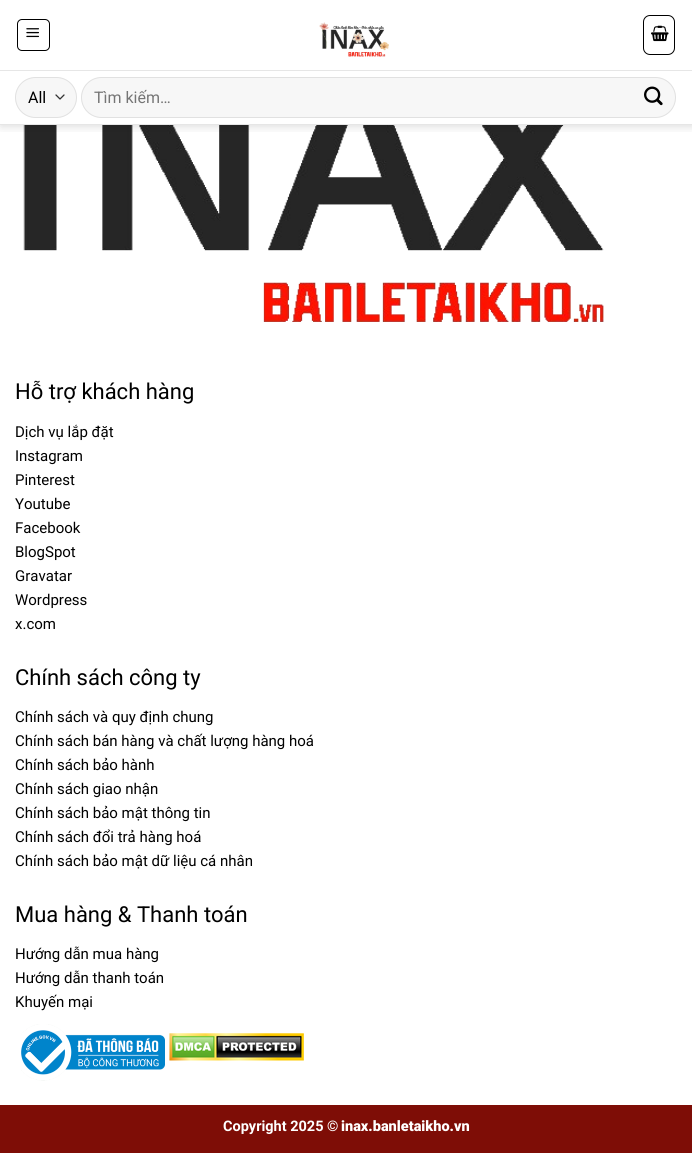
#include <cairo.h>
#include <math.h>
#include <stddef.h>


static void set_color(cairo_t *cr, unsigned color) {
    cairo_set_source_rgb(cr, (color >> 16) / 255.0, (color >> 8 & 255) / 255.0, (color & 255) / 255.0);
}

static void draw_text(cairo_t *cr, double x, double y, const char *s, const char *family, double size, int italic, int bold, unsigned color) {
    cairo_select_font_face(cr, family, italic ? CAIRO_FONT_SLANT_ITALIC : CAIRO_FONT_SLANT_NORMAL,
        bold ? CAIRO_FONT_WEIGHT_BOLD : CAIRO_FONT_WEIGHT_NORMAL);
    cairo_set_font_size(cr, size);
    set_color(cr, color);
    cairo_move_to(cr, x, y);
    cairo_show_text(cr, s);
}

static void fill_rect(cairo_t *cr, double x, double y, double w, double h, unsigned color) {
    set_color(cr, color);
    cairo_rectangle(cr, x, y, w, h);
    cairo_fill(cr);
}

static void rounded_rect(cairo_t *cr, double x, double y, double w, double h, double r) {
    cairo_new_sub_path(cr);
    cairo_arc(cr, x + w - r, y + h - r, r, 0, M_PI / 2);
    cairo_arc(cr, x + r, y + h - r, r, M_PI / 2, M_PI);
    cairo_arc(cr, x + r, y + r, r, M_PI, 1.5 * M_PI);
    cairo_arc(cr, x + w - r, y + r, r, 1.5 * M_PI, 2 * M_PI);
    cairo_close_path(cr);
}

static void draw_shadow(cairo_t *cr, double x, double y, double w, double h, double r, double blur, double alpha) {
    cairo_push_group_with_content(cr, CAIRO_CONTENT_ALPHA);
    cairo_set_operator(cr, CAIRO_OPERATOR_SOURCE);
    for (int i = 15; i >= -15 && fmin(w, h) + blur * i / 3 > 0; i -= 2) {
        double e = blur * i / 6;
        cairo_set_source_rgba(cr, 0, 0, 0, alpha * erfc((i - 1) / 8.5) / 2);
        rounded_rect(cr, x - e, y - e, w + 2 * e, h + 2 * e, fmax(0, fmin(r + e + blur * .6, fmin(w, h) / 2 + e)));
        cairo_fill(cr);
    }
    cairo_pattern_t *soft = cairo_pop_group(cr);
    cairo_mask(cr, soft);
    cairo_pattern_destroy(soft);
}

static void draw_image(cairo_t *cr, const char *path, double x, double y, double w, double h) {
    cairo_surface_t *image = cairo_image_surface_create_from_png(path);
    cairo_save(cr);
    cairo_set_source_surface(cr, image, x, y);
    cairo_rectangle(cr, x, y, w, h);
    cairo_fill(cr);
    cairo_restore(cr);
    cairo_surface_destroy(image);
}

int main(void) {
    cairo_surface_t *surface = cairo_image_surface_create(CAIRO_FORMAT_RGB24, 692, 1153);
    cairo_t *cr = cairo_create(surface);
    cairo_font_options_t *options = cairo_font_options_create();
    cairo_font_options_set_hint_metrics(options, CAIRO_HINT_METRICS_OFF);
    cairo_font_options_set_hint_style(options, CAIRO_HINT_STYLE_NONE);
    cairo_set_font_options(cr, options);
    cairo_set_miter_limit(cr, 4);
    set_color(cr, 0xFFFFFF);
    cairo_paint(cr);
    draw_image(cr, "assets/img5.png", 23, 125, 581, 197);
    cairo_save(cr);
    cairo_rectangle(cr, 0, 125, 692, 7);
    cairo_clip(cr);
    set_color(cr, 0x000000);
    draw_shadow(cr, 1, 1, 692, 125, 0, 5, 0.15);
    cairo_restore(cr);
    rounded_rect(cr, 17.5, 19.5, 32, 31, 4.5);
    set_color(cr, 0x000000);
    cairo_set_line_width(cr, 1);
    cairo_stroke(cr);
    draw_image(cr, "assets/img1.png", 26, 28, 13, 10);
    draw_image(cr, "assets/img2.png", 319, 22, 70, 35);
    rounded_rect(cr, 643.5, 15.5, 31, 39, 6.5);
    cairo_stroke(cr);
    draw_image(cr, "assets/img3.png", 651, 25, 18, 17);
    fill_rect(cr, 0, 70, 692, 1, 0xE6E6E6);
    fill_rect(cr, 0, 124, 692, 1, 0xE6E6E6);
    set_color(cr, 0xF7F7F7);
    rounded_rect(cr, 15, 77, 62, 41, 20.5);
    cairo_fill(cr);
    cairo_new_path(cr);
    cairo_move_to(cr, 56, 95);
    cairo_line_to(cr, 60, 99);
    cairo_line_to(cr, 64, 95);
    set_color(cr, 0x333333);
    cairo_set_line_width(cr, 1.3);
    cairo_set_line_cap(cr, CAIRO_LINE_CAP_ROUND);
    cairo_set_line_join(cr, CAIRO_LINE_JOIN_ROUND);
    cairo_stroke(cr);
    rounded_rect(cr, 15.5, 77.5, 61, 40, 20);
    cairo_set_source_rgba(cr, 0, 0, 0, 0.09);
    cairo_set_line_width(cr, 1);
    cairo_set_line_cap(cr, CAIRO_LINE_CAP_BUTT);
    cairo_set_line_join(cr, CAIRO_LINE_JOIN_MITER);
    cairo_stroke(cr);
    draw_text(cr, 28, 103, "All", "Roboto", 16, 0, 0, 0x000000);
    set_color(cr, 0xF7F7F7);
    rounded_rect(cr, 81, 77, 595, 41, 20.5);
    cairo_fill(cr);
    rounded_rect(cr, 81.5, 77.5, 594, 40, 20);
    cairo_set_source_rgba(cr, 0, 0, 0, 0.09);
    cairo_stroke(cr);
    draw_text(cr, 94, 103, "Tìm kiếm…", "Roboto", 16, 0, 0, 0x757575);
    draw_image(cr, "assets/img4.png", 644, 86, 19, 20);
    draw_text(cr, 15, 399, "Hỗ trợ khách hàng", "Roboto", 22, 0, 0, 0x000000);
    draw_text(cr, 15, 437, "Dịch vụ lắp đặt", "Roboto", 15, 0, 0, 0x000000);
    draw_text(cr, 15, 461, "Instagram", "Roboto", 15, 0, 0, 0x000000);
    draw_text(cr, 15, 485, "Pinterest", "Roboto", 15, 0, 0, 0x000000);
    draw_text(cr, 15, 509, "Youtube", "Roboto", 15, 0, 0, 0x000000);
    draw_text(cr, 15, 533, "Facebook", "Roboto", 15, 0, 0, 0x000000);
    draw_text(cr, 15, 557, "BlogSpot", "Roboto", 15, 0, 0, 0x000000);
    draw_text(cr, 15, 581, "Gravatar", "Roboto", 15, 0, 0, 0x000000);
    draw_text(cr, 15, 605, "Wordpress", "Roboto", 15, 0, 0, 0x000000);
    draw_text(cr, 15, 629, "x.com", "Roboto", 15, 0, 0, 0x000000);
    draw_text(cr, 15, 685, "Chính sách công ty", "Roboto", 22, 0, 0, 0x000000);
    draw_text(cr, 15, 722, "Chính sách và quy định chung", "Roboto", 15, 0, 0, 0x000000);
    draw_text(cr, 15, 746, "Chính sách bán hàng và chất lượng hàng hoá", "Roboto", 15, 0, 0, 0x000000);
    draw_text(cr, 15, 770, "Chính sách bảo hành", "Roboto", 15, 0, 0, 0x000000);
    draw_text(cr, 15, 794, "Chính sách giao nhận", "Roboto", 15, 0, 0, 0x000000);
    draw_text(cr, 15, 818, "Chính sách bảo mật thông tin", "Roboto", 15, 0, 0, 0x000000);
    draw_text(cr, 15, 842, "Chính sách đổi trả hàng hoá", "Roboto", 15, 0, 0, 0x000000);
    draw_text(cr, 15, 866, "Chính sách bảo mật dữ liệu cá nhân", "Roboto", 15, 0, 0, 0x000000);
    draw_text(cr, 15, 922, "Mua hàng & Thanh toán", "Roboto", 22, 0, 0, 0x000000);
    draw_text(cr, 15, 959, "Hướng dẫn mua hàng", "Roboto", 15, 0, 0, 0x000000);
    draw_text(cr, 15, 983, "Hướng dẫn thanh toán", "Roboto", 15, 0, 0, 0x000000);
    draw_text(cr, 15, 1007, "Khuyến mại", "Roboto", 15, 0, 0, 0x000000);
    draw_image(cr, "assets/img6.png", 21, 1024, 144, 57);
    draw_image(cr, "assets/img7.png", 169, 1033, 135, 28);
    fill_rect(cr, 0, 1105, 692, 48, 0x7E0D06);
    draw_text(cr, 223, 1131, "Copyright 2025 ©", "Roboto", 14.5, 0, 1, 0xFFFFFF);
    draw_text(cr, 341, 1131, "inax.banletaikho.vn", "Roboto Black", 14.5, 0, 0, 0xFFFFFF);
    cairo_surface_write_to_png(surface, "output.png");
    cairo_font_options_destroy(options);
    cairo_destroy(cr);
    cairo_surface_destroy(surface);
    return 0;
}
